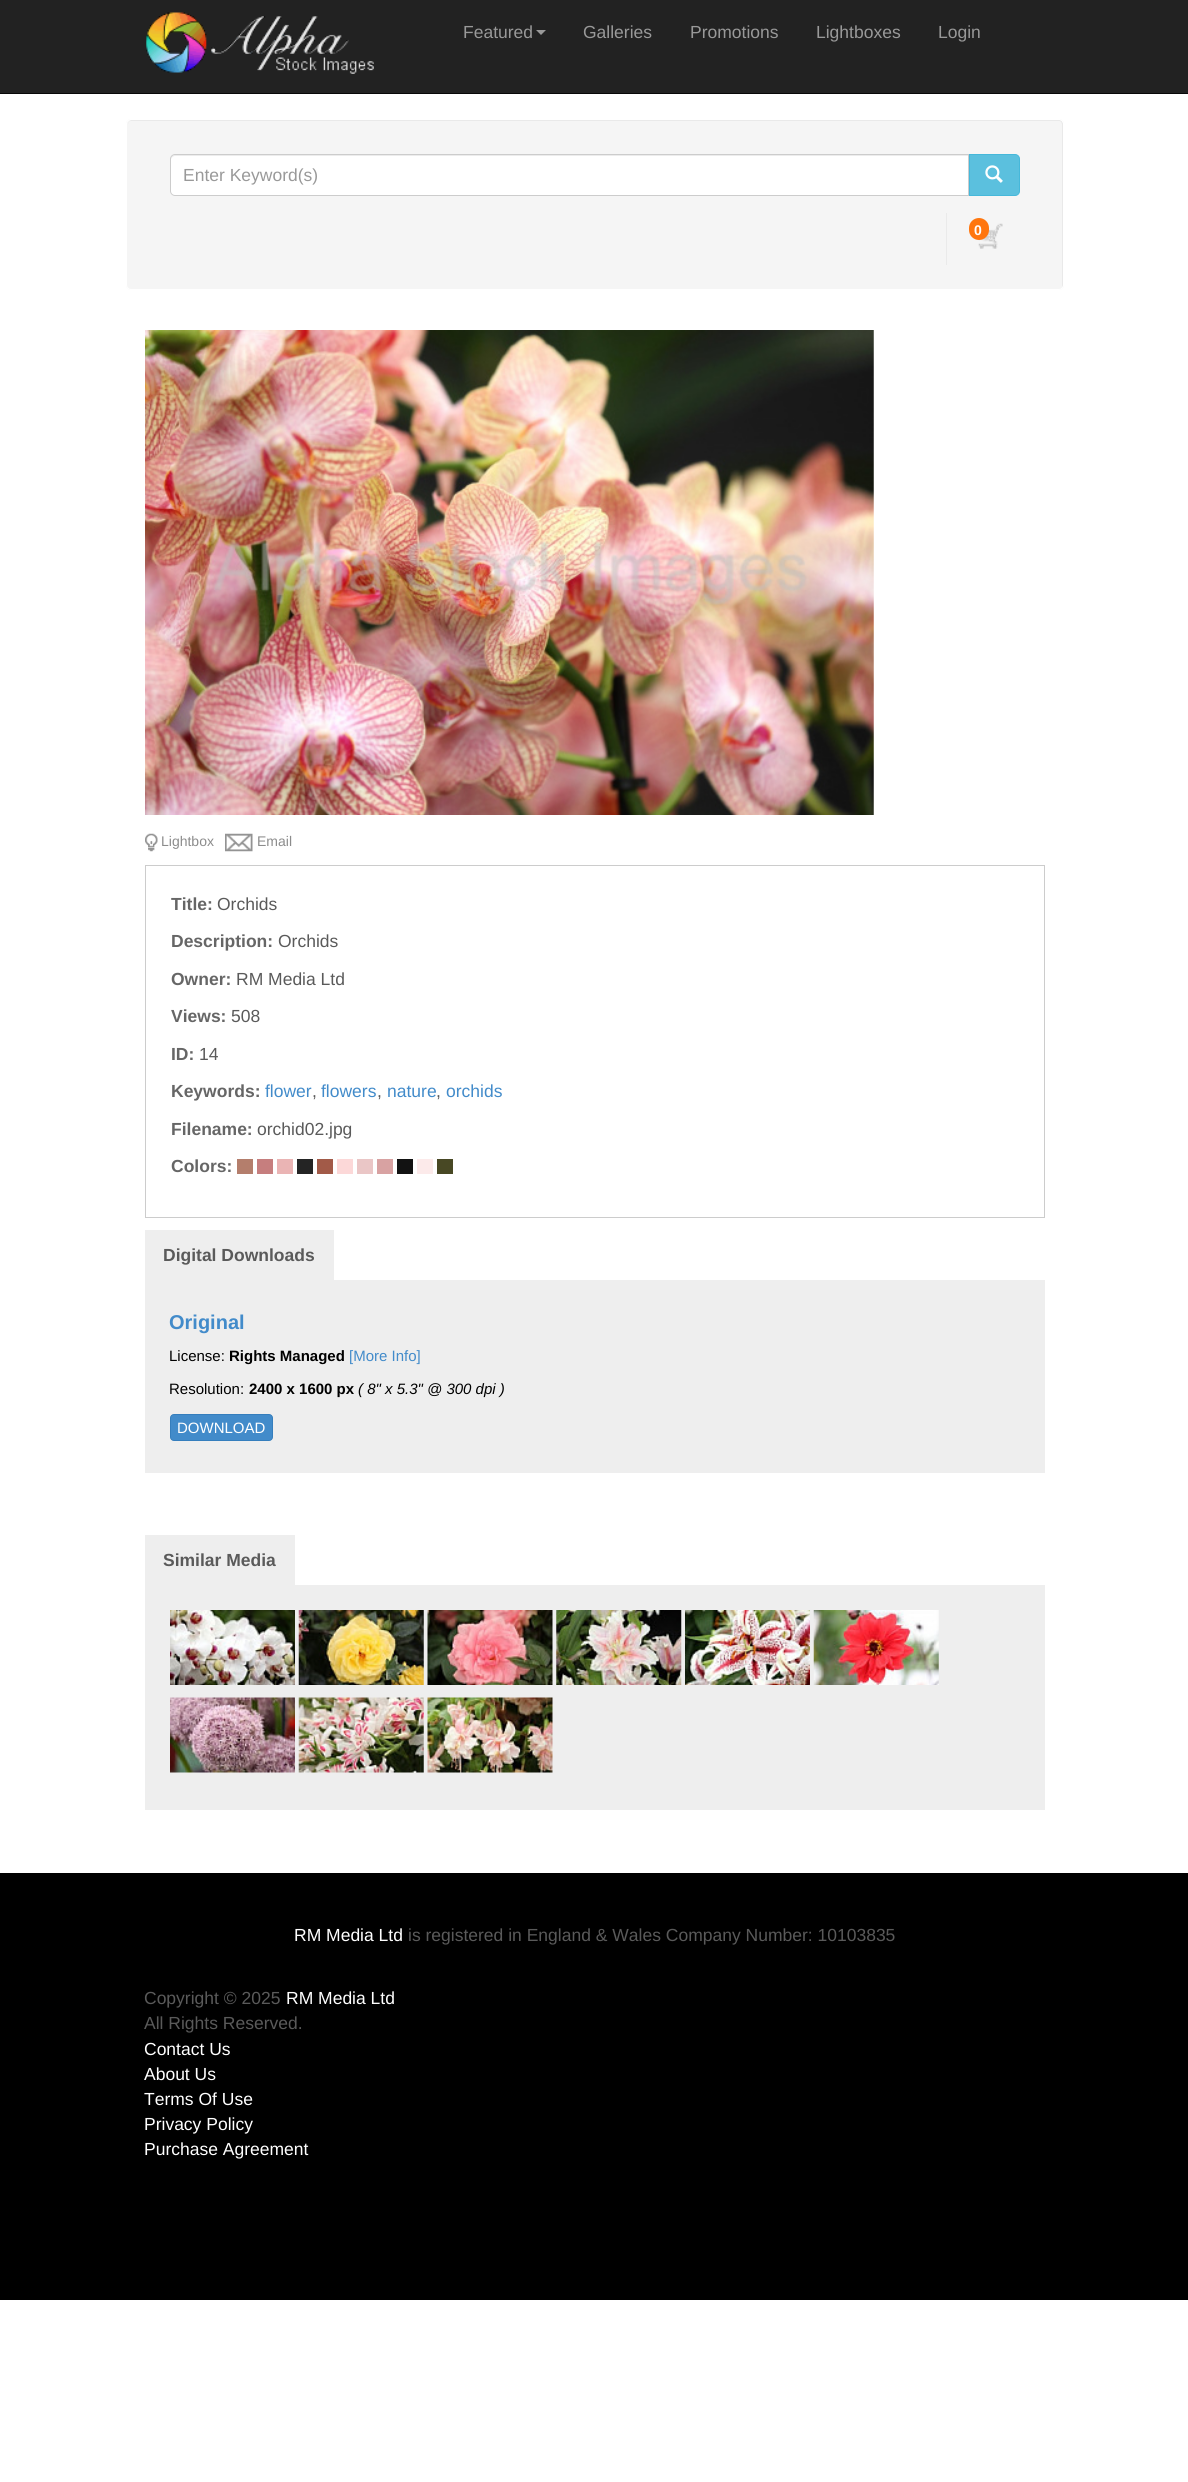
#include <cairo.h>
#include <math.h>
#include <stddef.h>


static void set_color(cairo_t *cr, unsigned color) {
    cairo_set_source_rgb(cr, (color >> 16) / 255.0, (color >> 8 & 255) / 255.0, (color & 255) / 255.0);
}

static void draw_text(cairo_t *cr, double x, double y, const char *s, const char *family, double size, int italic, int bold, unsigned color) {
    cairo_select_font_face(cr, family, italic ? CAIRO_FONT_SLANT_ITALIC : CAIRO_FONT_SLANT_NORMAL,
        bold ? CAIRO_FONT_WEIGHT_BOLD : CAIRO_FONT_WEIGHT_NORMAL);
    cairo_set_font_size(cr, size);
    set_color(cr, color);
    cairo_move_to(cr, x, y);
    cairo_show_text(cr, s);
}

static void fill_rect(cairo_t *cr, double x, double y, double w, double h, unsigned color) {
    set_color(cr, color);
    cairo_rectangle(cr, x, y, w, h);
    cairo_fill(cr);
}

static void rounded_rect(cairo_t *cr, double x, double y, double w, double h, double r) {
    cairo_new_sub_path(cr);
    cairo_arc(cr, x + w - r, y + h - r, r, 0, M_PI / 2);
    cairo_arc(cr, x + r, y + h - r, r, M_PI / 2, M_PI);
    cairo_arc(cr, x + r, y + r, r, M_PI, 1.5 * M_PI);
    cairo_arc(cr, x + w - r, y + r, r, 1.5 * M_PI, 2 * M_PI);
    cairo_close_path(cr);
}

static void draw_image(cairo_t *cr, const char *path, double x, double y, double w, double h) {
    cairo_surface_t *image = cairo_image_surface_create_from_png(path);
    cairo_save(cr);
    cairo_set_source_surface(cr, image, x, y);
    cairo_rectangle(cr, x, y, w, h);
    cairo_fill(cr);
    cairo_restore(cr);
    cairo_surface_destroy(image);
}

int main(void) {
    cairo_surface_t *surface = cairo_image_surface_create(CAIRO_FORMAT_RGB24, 1188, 2482);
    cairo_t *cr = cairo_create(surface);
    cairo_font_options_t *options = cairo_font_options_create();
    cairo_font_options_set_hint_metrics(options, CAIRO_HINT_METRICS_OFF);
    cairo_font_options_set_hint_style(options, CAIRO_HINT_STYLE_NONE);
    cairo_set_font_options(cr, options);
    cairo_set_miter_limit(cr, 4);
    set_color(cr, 0xFFFFFF);
    cairo_paint(cr);
    fill_rect(cr, 0, 0, 1188, 93, 0x222222);
    fill_rect(cr, 0, 93, 1188, 1, 0x080808);
    draw_image(cr, "assets/img1.png", 146, 12, 228, 62);
    draw_text(cr, 463, 38, "Featured", "Liberation Sans", 17.5, 0, 0, 0x999999);
    cairo_new_path(cr);
    cairo_move_to(cr, 536, 30);
    cairo_line_to(cr, 546, 30);
    cairo_line_to(cr, 541, 35);
    cairo_close_path(cr);
    cairo_fill(cr);
    draw_text(cr, 583, 38, "Galleries", "Liberation Sans", 17.5, 0, 0, 0x999999);
    draw_text(cr, 690, 38, "Promotions", "Liberation Sans", 17.5, 0, 0, 0x999999);
    draw_text(cr, 816, 38, "Lightboxes", "Liberation Sans", 17.5, 0, 0, 0x999999);
    draw_text(cr, 938, 38, "Login", "Liberation Sans", 17.5, 0, 0, 0x999999);
    set_color(cr, 0xF5F5F5);
    rounded_rect(cr, 126, 119, 938, 171, 5);
    cairo_fill(cr);
    set_color(cr, 0xE9E9E9);
    cairo_new_path(cr);
    cairo_move_to(cr, 131, 121);
    cairo_line_to(cr, 1059, 121);
    cairo_curve_to(cr, 1061, 121, 1062, 123, 1062, 125);
    cairo_line_to(cr, 1062, 286);
    cairo_line_to(cr, 1062, 288);
    cairo_curve_to(cr, 1062, 287, 1063, 286, 1063, 285);
    cairo_line_to(cr, 1063, 124);
    cairo_curve_to(cr, 1063, 122, 1061, 120, 1059, 120);
    cairo_line_to(cr, 132, 120);
    cairo_curve_to(cr, 130, 120, 128, 122, 128, 124);
    cairo_line_to(cr, 128, 125);
    cairo_curve_to(cr, 128, 123, 129, 121, 131, 121);
    cairo_close_path(cr);
    cairo_fill(cr);
    rounded_rect(cr, 126.5, 119.5, 937, 170, 4.5);
    set_color(cr, 0xFFFFFF);
    cairo_set_line_width(cr, 1);
    cairo_stroke(cr);
    cairo_new_path(cr);
    cairo_move_to(cr, 175, 154);
    cairo_line_to(cr, 969, 154);
    cairo_line_to(cr, 969, 196);
    cairo_line_to(cr, 175, 196);
    cairo_curve_to(cr, 172, 196, 170, 194, 170, 191);
    cairo_line_to(cr, 170, 159);
    cairo_curve_to(cr, 170, 156, 172, 154, 175, 154);
    cairo_close_path(cr);
    cairo_fill(cr);
    set_color(cr, 0xECECEC);
    cairo_new_path(cr);
    cairo_move_to(cr, 175, 156);
    cairo_line_to(cr, 968, 156);
    cairo_line_to(cr, 968, 155);
    cairo_line_to(cr, 175, 155);
    cairo_curve_to(cr, 172, 155, 171, 157, 171, 160);
    cairo_curve_to(cr, 171, 158, 173, 156, 175, 156);
    cairo_close_path(cr);
    cairo_fill(cr);
    cairo_new_path(cr);
    cairo_move_to(cr, 175, 154.5);
    cairo_line_to(cr, 968.5, 154.5);
    cairo_line_to(cr, 968.5, 195.5);
    cairo_line_to(cr, 175, 195.5);
    cairo_curve_to(cr, 172.5, 195.5, 170.5, 193.5, 170.5, 191);
    cairo_line_to(cr, 170.5, 159);
    cairo_curve_to(cr, 170.5, 156.5, 172.5, 154.5, 175, 154.5);
    cairo_close_path(cr);
    set_color(cr, 0xCCCCCC);
    cairo_stroke(cr);
    draw_text(cr, 183, 181, "Enter Keyword(s)", "Liberation Sans", 17.5, 0, 0, 0x999999);
    set_color(cr, 0x5BC0DE);
    cairo_new_path(cr);
    cairo_move_to(cr, 969.5, 154.5);
    cairo_line_to(cr, 1015, 154.5);
    cairo_curve_to(cr, 1017.5, 154.5, 1019.5, 156.5, 1019.5, 159);
    cairo_line_to(cr, 1019.5, 191);
    cairo_curve_to(cr, 1019.5, 193.5, 1017.5, 195.5, 1015, 195.5);
    cairo_line_to(cr, 969.5, 195.5);
    cairo_close_path(cr);
    cairo_fill_preserve(cr);
    set_color(cr, 0x46B8DA);
    cairo_stroke(cr);
    draw_image(cr, "assets/img2.png", 985, 165, 18, 18);
    fill_rect(cr, 946, 213, 1, 52, 0xEAEAEA);
    draw_image(cr, "assets/img3.png", 978, 223, 25, 26);
    set_color(cr, 0xFF760E);
    rounded_rect(cr, 969, 218, 20, 22, 10);
    cairo_fill(cr);
    draw_text(cr, 974, 235, "0", "Liberation Sans", 14, 0, 1, 0xFFFFFF);
    draw_image(cr, "assets/img4.png", 145, 330, 729, 485);
    draw_image(cr, "assets/img5.png", 145, 833, 13, 19);
    draw_text(cr, 161, 846, "Lightbox", "Liberation Sans", 14, 0, 0, 0x8C8C8C);
    draw_image(cr, "assets/img6.png", 225, 833, 28, 19);
    draw_text(cr, 257, 846, "Email", "Liberation Sans", 14, 0, 0, 0x8C8C8C);
    cairo_rectangle(cr, 145.5, 865.5, 899, 352);
    set_color(cr, 0xCCCCCC);
    cairo_stroke(cr);
    draw_text(cr, 171, 910, "Title:", "Liberation Sans", 17.5, 0, 1, 0x666666);
    draw_text(cr, 217, 910, "Orchids", "Liberation Sans", 17.5, 0, 0, 0x5A5A5A);
    draw_text(cr, 171, 947, "Description:", "Liberation Sans", 17.5, 0, 1, 0x666666);
    draw_text(cr, 278, 947, "Orchids", "Liberation Sans", 17.5, 0, 0, 0x5A5A5A);
    draw_text(cr, 171, 985, "Owner:", "Liberation Sans", 17.5, 0, 1, 0x666666);
    draw_text(cr, 236, 985, "RM Media Ltd", "Liberation Sans", 17.5, 0, 0, 0x5A5A5A);
    draw_text(cr, 171, 1022, "Views:", "Liberation Sans", 17.5, 0, 1, 0x666666);
    draw_text(cr, 231, 1022, "508", "Liberation Sans", 17.5, 0, 0, 0x5A5A5A);
    draw_text(cr, 171, 1060, "ID:", "Liberation Sans", 17.5, 0, 1, 0x666666);
    draw_text(cr, 199, 1060, "14", "Liberation Sans", 17.5, 0, 0, 0x5A5A5A);
    draw_text(cr, 171, 1097, "Keywords:", "Liberation Sans", 17.5, 0, 1, 0x666666);
    draw_text(cr, 265, 1097, "flower", "Liberation Sans", 17.5, 0, 0, 0x428BCA);
    draw_text(cr, 312, 1097, ",", "Liberation Sans", 17.5, 0, 0, 0x5A5A5A);
    draw_text(cr, 321, 1097, "flowers", "Liberation Sans", 17.5, 0, 0, 0x428BCA);
    draw_text(cr, 377, 1097, ",", "Liberation Sans", 17.5, 0, 0, 0x5A5A5A);
    draw_text(cr, 387, 1097, "nature", "Liberation Sans", 17.5, 0, 0, 0x428BCA);
    draw_text(cr, 436, 1097, ",", "Liberation Sans", 17.5, 0, 0, 0x5A5A5A);
    draw_text(cr, 446, 1097, "orchids", "Liberation Sans", 17.5, 0, 0, 0x428BCA);
    draw_text(cr, 171, 1135, "Filename:", "Liberation Sans", 17.5, 0, 1, 0x666666);
    draw_text(cr, 257, 1135, "orchid02.jpg", "Liberation Sans", 17.5, 0, 0, 0x5A5A5A);
    draw_text(cr, 171, 1172, "Colors:", "Liberation Sans", 17.5, 0, 1, 0x666666);
    fill_rect(cr, 237, 1159, 16, 15, 0xB47E6C);
    fill_rect(cr, 257, 1159, 16, 15, 0xC67E7E);
    fill_rect(cr, 277, 1159, 16, 15, 0xEAB4B4);
    fill_rect(cr, 297, 1159, 16, 15, 0x242424);
    fill_rect(cr, 317, 1159, 16, 15, 0xA25A48);
    fill_rect(cr, 337, 1159, 16, 15, 0xFCD8D8);
    fill_rect(cr, 357, 1159, 16, 15, 0xEAC6C6);
    fill_rect(cr, 377, 1159, 16, 15, 0xD8A2A2);
    fill_rect(cr, 397, 1159, 16, 15, 0x121212);
    fill_rect(cr, 417, 1159, 16, 15, 0xFCEAEA);
    fill_rect(cr, 437, 1159, 16, 15, 0x484824);
    fill_rect(cr, 145, 1230, 189, 50, 0xEEEEEE);
    draw_text(cr, 163, 1261, "Digital Downloads", "Liberation Sans", 17.5, 0, 1, 0x5A5A5A);
    fill_rect(cr, 145, 1280, 900, 193, 0xEEEEEE);
    draw_text(cr, 169, 1329, "Original", "Liberation Sans", 20, 0, 1, 0x428BCA);
    draw_text(cr, 169, 1361, "License:", "Liberation Sans", 15, 0, 0, 0x000000);
    draw_text(cr, 229, 1361, "Rights Managed", "Liberation Sans", 15, 0, 1, 0x000000);
    draw_text(cr, 349, 1361, "[More Info]", "Liberation Sans", 15, 0, 0, 0x428BCA);
    draw_text(cr, 169, 1394, "Resolution:", "Liberation Sans", 15, 0, 0, 0x000000);
    draw_text(cr, 249, 1394, "2400 x 1600 px", "Liberation Sans", 15, 0, 1, 0x000000);
    draw_text(cr, 358, 1394, "( 8\" x 5.3\" @ 300 dpi )", "Liberation Sans", 15, 1, 0, 0x000000);
    set_color(cr, 0x428BCA);
    rounded_rect(cr, 170.5, 1414.5, 102, 26, 3.5);
    cairo_fill_preserve(cr);
    set_color(cr, 0x357EBD);
    cairo_stroke(cr);
    draw_text(cr, 177, 1433, "DOWNLOAD", "Liberation Sans", 15, 0, 0, 0xFFFFFF);
    fill_rect(cr, 145, 1535, 150, 50, 0xEEEEEE);
    draw_text(cr, 163, 1566, "Similar Media", "Liberation Sans", 17.5, 0, 1, 0x5A5A5A);
    fill_rect(cr, 145, 1585, 900, 225, 0xEEEEEE);
    draw_image(cr, "assets/img7.png", 170, 1610, 125, 75);
    draw_image(cr, "assets/img8.png", 298, 1610, 126, 75);
    draw_image(cr, "assets/img9.png", 427, 1610, 126, 75);
    draw_image(cr, "assets/img10.png", 556, 1610, 126, 75);
    draw_image(cr, "assets/img11.png", 685, 1610, 125, 75);
    draw_image(cr, "assets/img12.png", 813, 1610, 126, 75);
    draw_image(cr, "assets/img13.png", 170, 1697, 125, 76);
    draw_image(cr, "assets/img14.png", 298, 1697, 126, 76);
    draw_image(cr, "assets/img15.png", 427, 1697, 126, 76);
    fill_rect(cr, 0, 1873, 1188, 427, 0x000000);
    draw_text(cr, 294, 1941, "RM Media Ltd", "Liberation Sans", 17.5, 0, 0, 0xFFFFFF);
    draw_text(cr, 408, 1941, "is registered in England & Wales Company Number: 10103835", "Liberation Sans", 17.5, 0, 0, 0x5A5A5A);
    draw_text(cr, 144, 2004, "Copyright © 2025", "Liberation Sans", 17.5, 0, 0, 0x5A5A5A);
    draw_text(cr, 286, 2004, "RM Media Ltd", "Liberation Sans", 17.5, 0, 0, 0xFFFFFF);
    draw_text(cr, 144, 2029, "All Rights Reserved.", "Liberation Sans", 17.5, 0, 0, 0x5A5A5A);
    draw_text(cr, 144, 2055, "Contact Us", "Liberation Sans", 17.5, 0, 0, 0xFFFFFF);
    draw_text(cr, 144, 2080, "About Us", "Liberation Sans", 17.5, 0, 0, 0xFFFFFF);
    draw_text(cr, 144, 2105, "Terms Of Use", "Liberation Sans", 17.5, 0, 0, 0xFFFFFF);
    draw_text(cr, 144, 2130, "Privacy Policy", "Liberation Sans", 17.5, 0, 0, 0xFFFFFF);
    draw_text(cr, 144, 2155, "Purchase Agreement", "Liberation Sans", 17.5, 0, 0, 0xFFFFFF);
    cairo_surface_write_to_png(surface, "output.png");
    cairo_font_options_destroy(options);
    cairo_destroy(cr);
    cairo_surface_destroy(surface);
    return 0;
}
